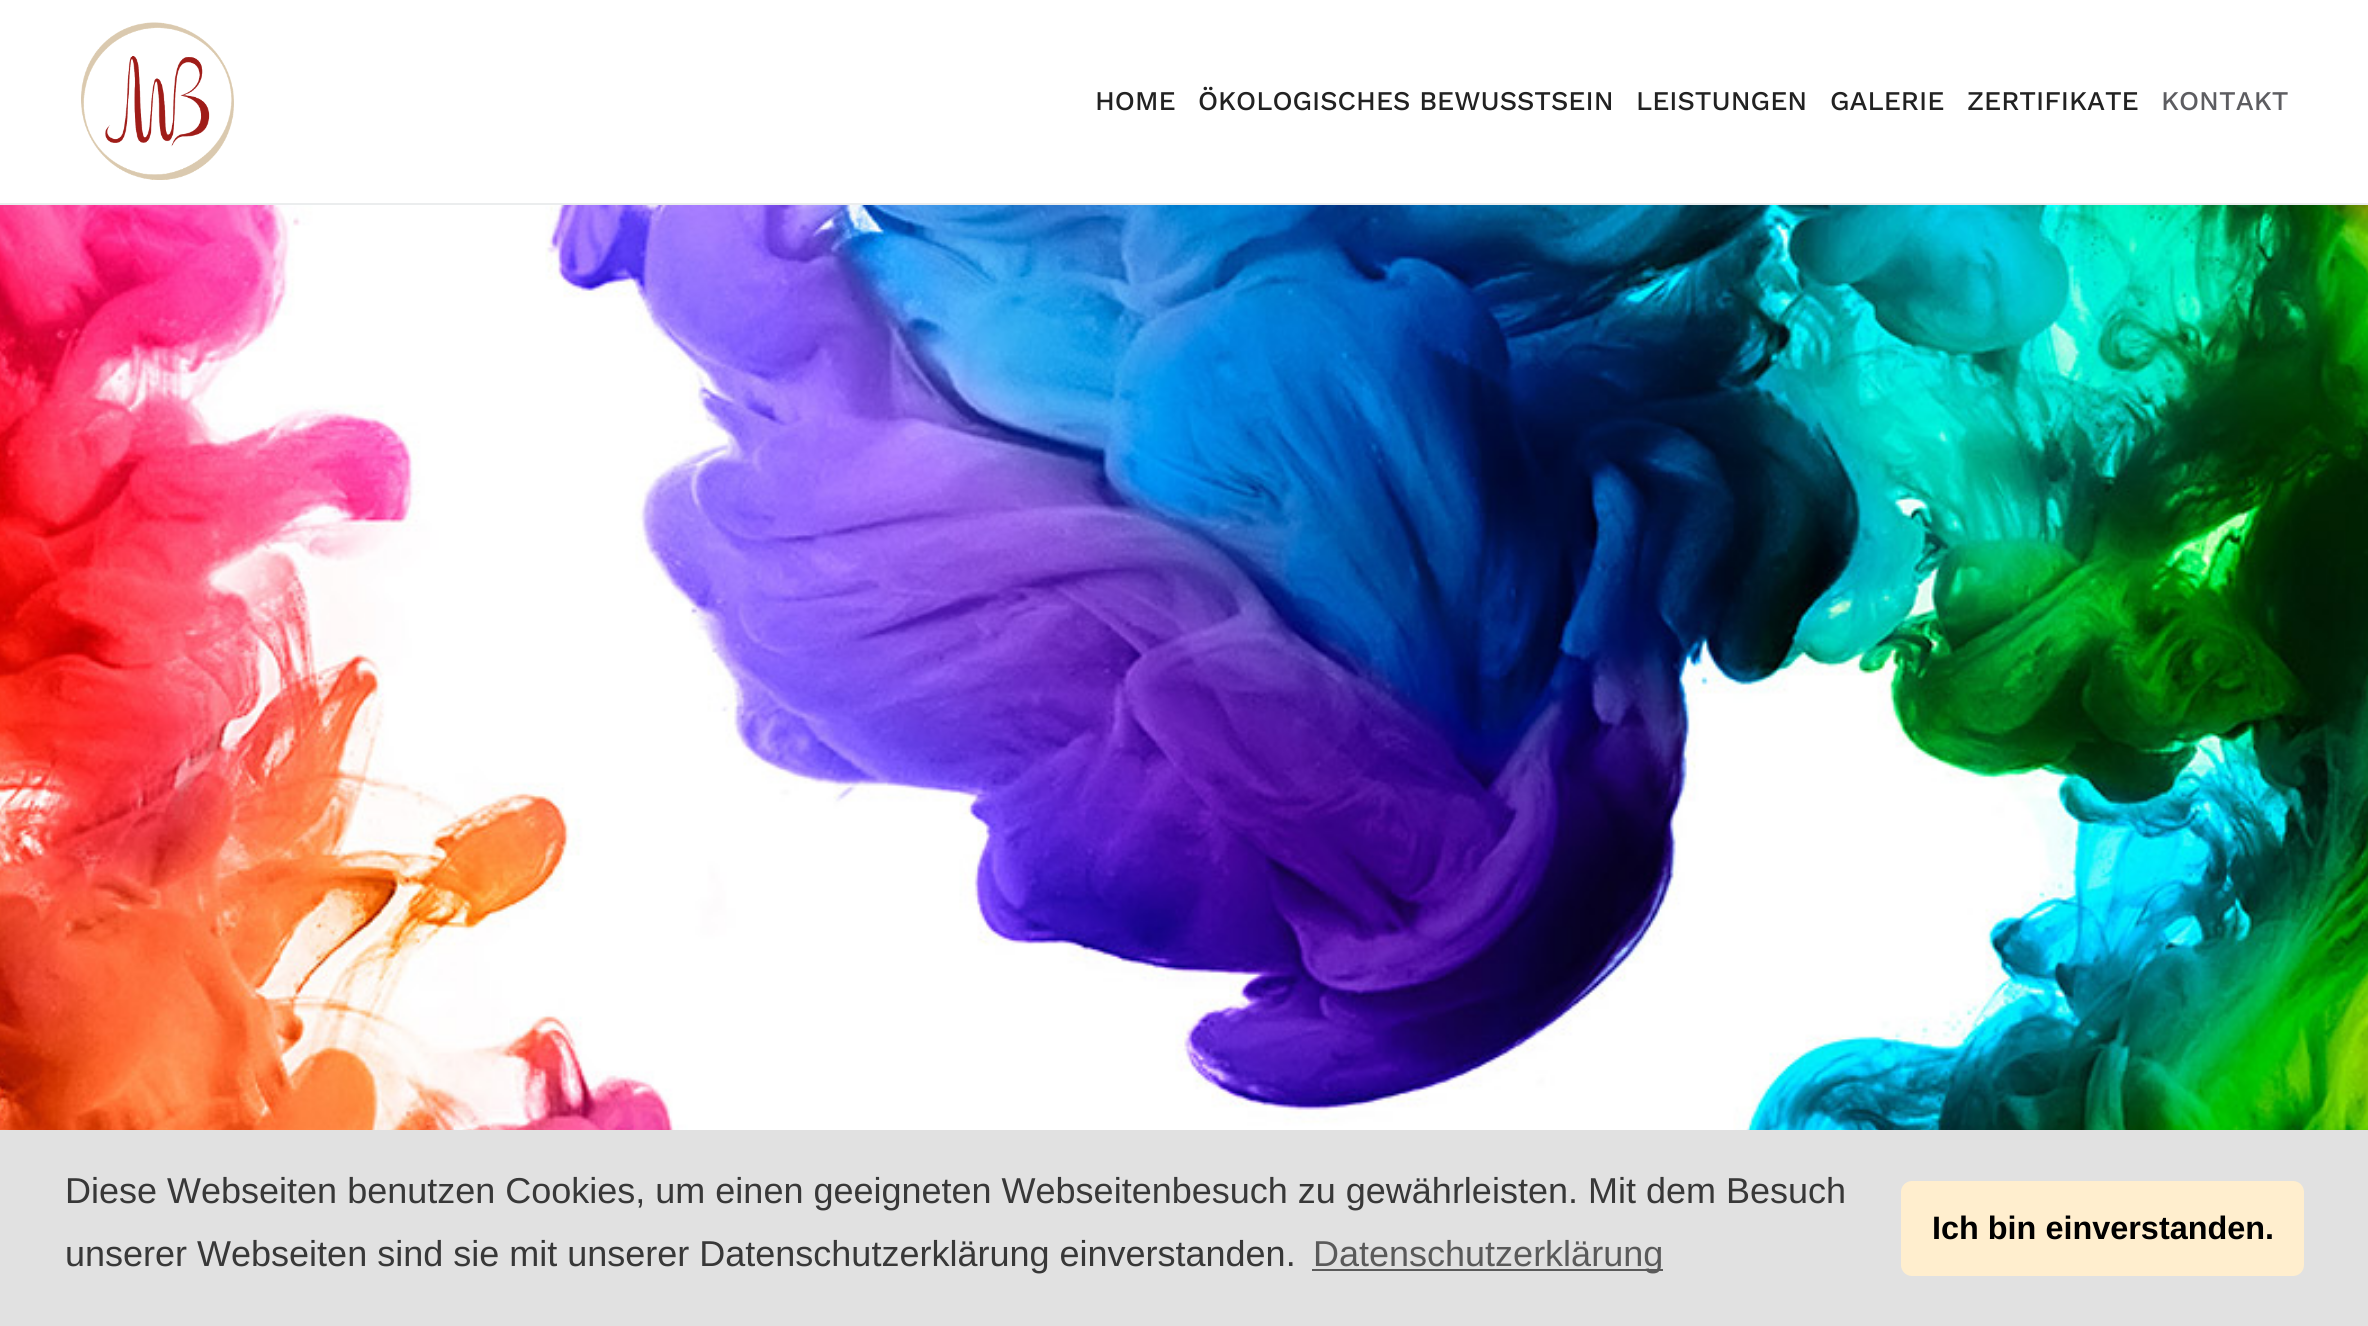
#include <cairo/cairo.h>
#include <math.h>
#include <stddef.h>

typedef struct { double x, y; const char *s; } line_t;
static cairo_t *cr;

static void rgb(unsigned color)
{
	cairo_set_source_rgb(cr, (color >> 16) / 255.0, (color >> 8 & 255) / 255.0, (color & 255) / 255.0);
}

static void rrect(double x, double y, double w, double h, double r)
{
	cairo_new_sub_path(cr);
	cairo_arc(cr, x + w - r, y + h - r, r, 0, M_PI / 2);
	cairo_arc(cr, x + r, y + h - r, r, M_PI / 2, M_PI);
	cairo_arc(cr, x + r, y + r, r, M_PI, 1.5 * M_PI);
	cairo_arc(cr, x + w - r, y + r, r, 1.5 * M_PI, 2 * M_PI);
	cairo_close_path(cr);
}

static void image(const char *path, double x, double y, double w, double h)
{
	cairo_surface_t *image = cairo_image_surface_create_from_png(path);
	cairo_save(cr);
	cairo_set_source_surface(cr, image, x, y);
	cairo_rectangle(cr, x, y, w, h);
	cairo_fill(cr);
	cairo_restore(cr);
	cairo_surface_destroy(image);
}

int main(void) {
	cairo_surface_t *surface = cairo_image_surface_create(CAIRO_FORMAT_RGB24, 2368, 1326);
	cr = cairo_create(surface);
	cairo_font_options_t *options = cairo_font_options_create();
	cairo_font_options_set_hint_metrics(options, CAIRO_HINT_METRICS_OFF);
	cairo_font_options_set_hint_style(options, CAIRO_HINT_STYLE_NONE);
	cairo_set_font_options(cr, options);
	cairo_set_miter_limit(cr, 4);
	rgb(0xffffff);
	cairo_paint(cr);
	rgb(0xebedee);
	cairo_rectangle(cr, 0, 203, 2368, 2);
	cairo_fill(cr);
	image("img/1.png", 81, 22, 153, 158);
	image("img/2.png", 0, 205, 2368, 925);
	rgb(0xe1e1e1);
	cairo_rectangle(cr, 0, 1130, 2368, 196);
	cairo_fill(cr);
	rgb(0x5a5a5a);
	cairo_rectangle(cr, 1312, 1269, 351, 2);
	cairo_fill(cr);
	rgb(0xffeece);
	rrect(1901, 1181, 403, 95, 11);
	cairo_fill(cr);
	cairo_select_font_face(cr, "Work Sans Medium", CAIRO_FONT_SLANT_NORMAL, CAIRO_FONT_WEIGHT_NORMAL);
	cairo_set_font_size(cr, 27);
	rgb(0x222222);
	{
		static const line_t items[] = {
			{1095, 110, "HOME"},
			{1198, 110, "ÖKOLOGISCHES BEWUSSTSEIN"},
			{1636, 110, "LEISTUNGEN"},
			{1830, 110, "GALERIE"},
			{1967, 110, "ZERTIFIKATE"},
		};
		for (size_t i = 0; i < sizeof items / sizeof *items; i++) {
			cairo_move_to(cr, items[i].x, items[i].y);
			cairo_show_text(cr, items[i].s);
		}
	}
	rgb(0x5d5d61);
	cairo_move_to(cr, 2161, 110);
	cairo_show_text(cr, "KONTAKT");
	cairo_select_font_face(cr, "Liberation Sans", CAIRO_FONT_SLANT_NORMAL, CAIRO_FONT_WEIGHT_NORMAL);
	cairo_set_font_size(cr, 36);
	rgb(0x383838);
	cairo_move_to(cr, 65, 1203);
	cairo_show_text(cr, "Diese Webseiten benutzen Cookies, um einen geeigneten Webseitenbesuch zu gewährleisten. Mit dem Besuch");
	cairo_move_to(cr, 65, 1266);
	cairo_show_text(cr, "unserer Webseiten sind sie mit unserer Datenschutzerklärung einverstanden.");
	rgb(0x5a5a5a);
	cairo_move_to(cr, 1313, 1266);
	cairo_show_text(cr, "Datenschutzerklärung");
	cairo_select_font_face(cr, "Liberation Sans", CAIRO_FONT_SLANT_NORMAL, CAIRO_FONT_WEIGHT_BOLD);
	cairo_set_font_size(cr, 32.4);
	rgb(0x000000);
	cairo_move_to(cr, 1932, 1239);
	cairo_show_text(cr, "Ich bin einverstanden.");
	cairo_surface_write_to_png(surface, "page.png");
	cairo_font_options_destroy(options);
	cairo_destroy(cr);
	cairo_surface_destroy(surface);
	return 0;
}
